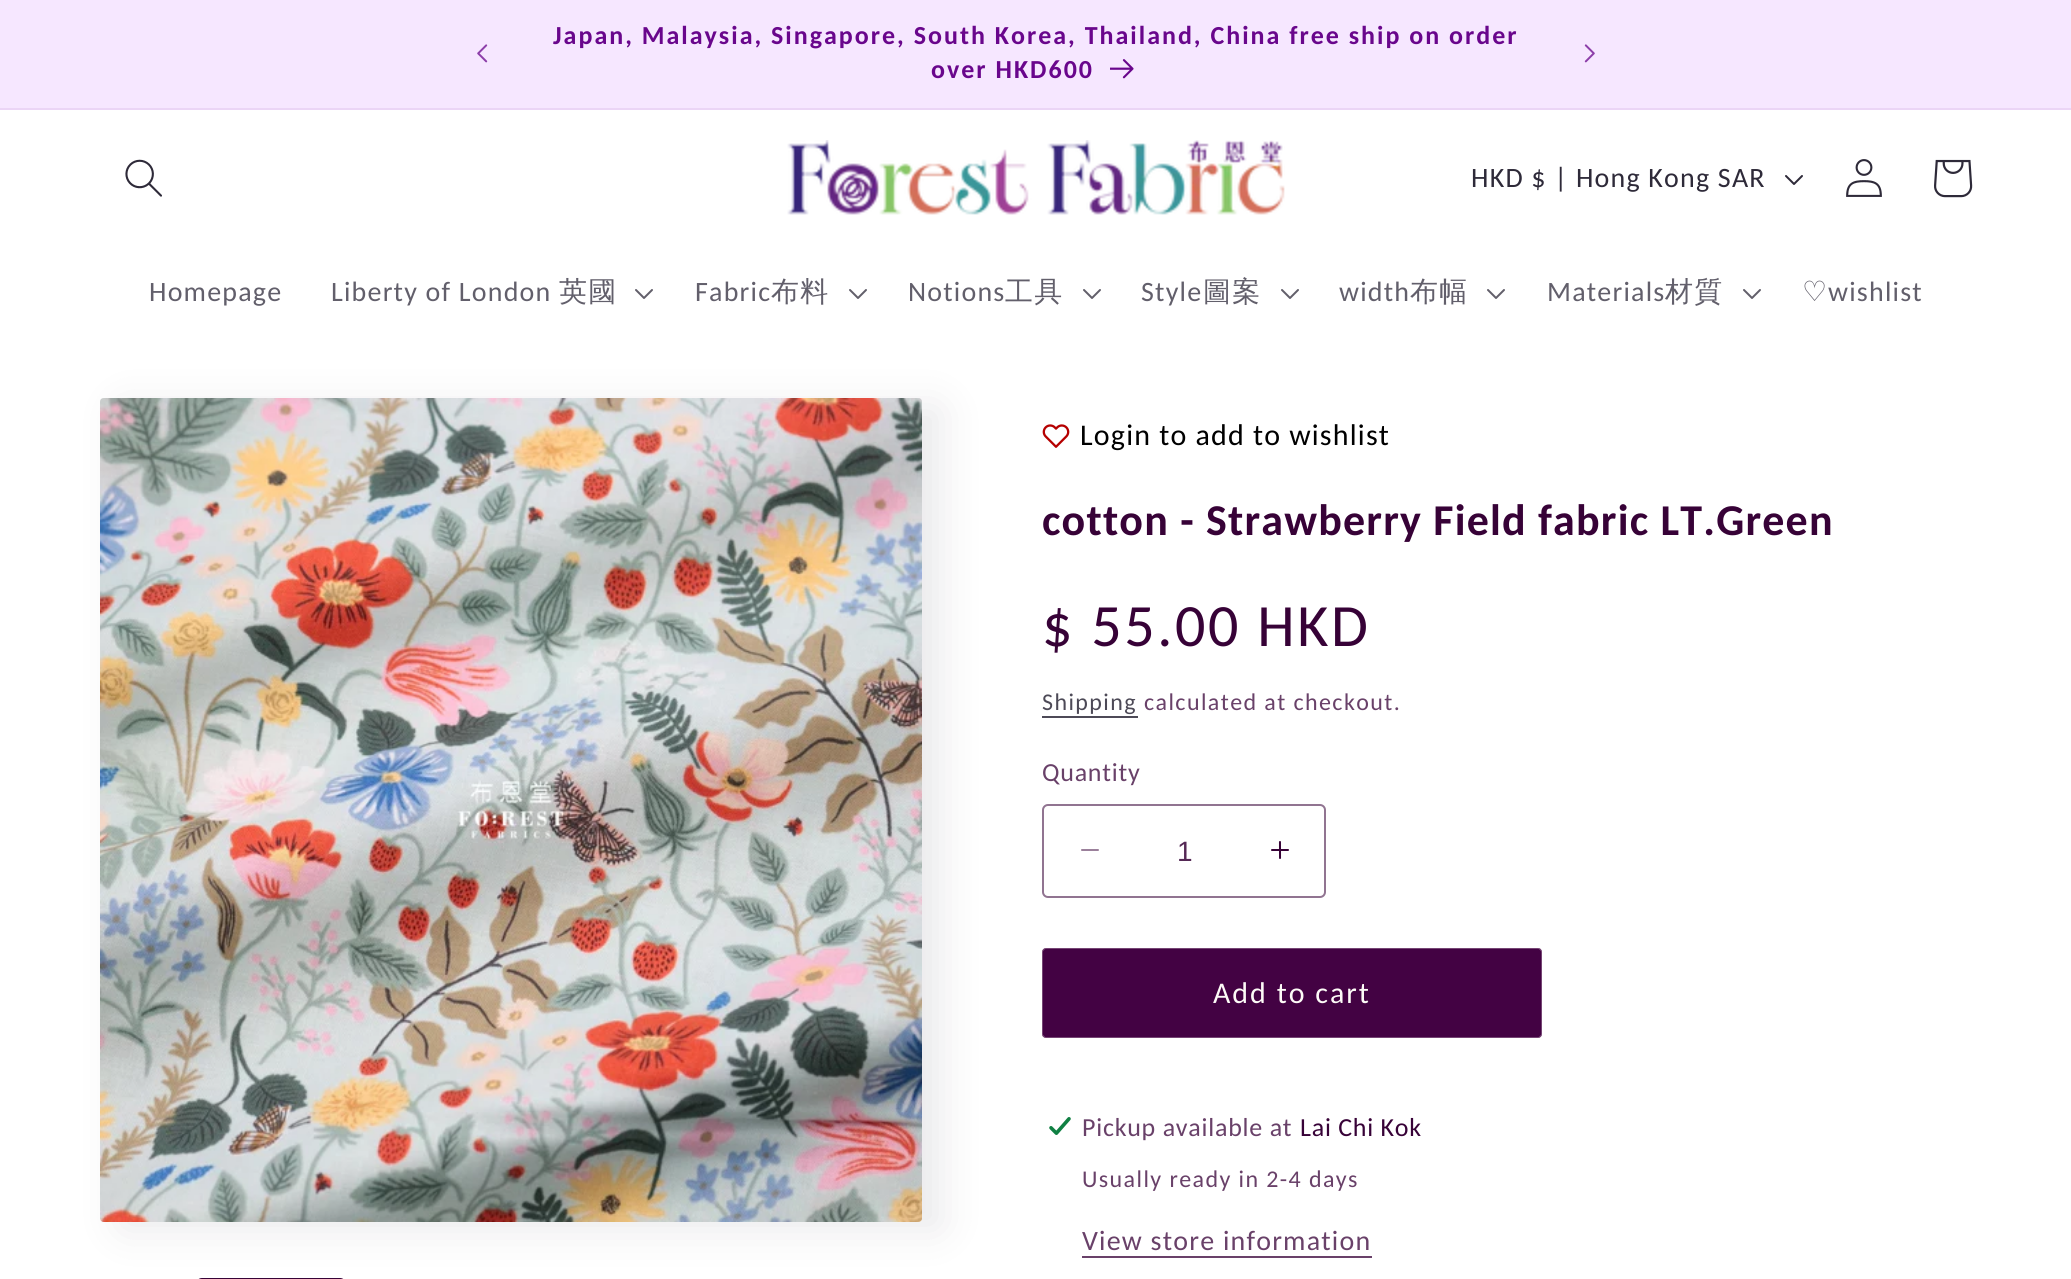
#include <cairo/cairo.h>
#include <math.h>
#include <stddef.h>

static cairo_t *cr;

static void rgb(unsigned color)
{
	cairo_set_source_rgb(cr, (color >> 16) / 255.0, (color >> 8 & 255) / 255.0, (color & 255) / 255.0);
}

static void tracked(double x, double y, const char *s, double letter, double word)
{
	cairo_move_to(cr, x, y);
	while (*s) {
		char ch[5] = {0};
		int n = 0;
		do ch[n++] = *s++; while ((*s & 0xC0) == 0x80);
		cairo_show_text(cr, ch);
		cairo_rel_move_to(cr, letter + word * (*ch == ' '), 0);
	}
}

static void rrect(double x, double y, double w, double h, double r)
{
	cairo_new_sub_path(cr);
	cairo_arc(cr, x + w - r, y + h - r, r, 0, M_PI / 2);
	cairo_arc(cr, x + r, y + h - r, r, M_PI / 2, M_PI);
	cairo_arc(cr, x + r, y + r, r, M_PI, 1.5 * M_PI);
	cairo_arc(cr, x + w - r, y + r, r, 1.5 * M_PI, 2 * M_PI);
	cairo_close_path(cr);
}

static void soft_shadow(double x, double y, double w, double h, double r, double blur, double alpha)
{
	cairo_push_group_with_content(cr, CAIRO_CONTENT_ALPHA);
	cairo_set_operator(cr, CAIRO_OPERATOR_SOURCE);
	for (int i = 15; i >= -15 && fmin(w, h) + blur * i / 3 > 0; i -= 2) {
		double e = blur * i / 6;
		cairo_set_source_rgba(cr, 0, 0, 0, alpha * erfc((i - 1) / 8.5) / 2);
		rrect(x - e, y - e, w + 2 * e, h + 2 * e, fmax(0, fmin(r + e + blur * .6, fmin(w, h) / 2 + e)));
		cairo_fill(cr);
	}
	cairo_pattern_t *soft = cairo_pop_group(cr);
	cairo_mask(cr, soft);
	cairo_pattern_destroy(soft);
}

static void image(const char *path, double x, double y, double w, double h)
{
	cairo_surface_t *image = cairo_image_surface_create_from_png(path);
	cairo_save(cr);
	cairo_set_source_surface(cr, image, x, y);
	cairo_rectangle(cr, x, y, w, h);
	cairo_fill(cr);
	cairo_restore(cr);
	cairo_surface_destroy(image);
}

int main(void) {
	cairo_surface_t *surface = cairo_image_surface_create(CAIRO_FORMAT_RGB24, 2071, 1279);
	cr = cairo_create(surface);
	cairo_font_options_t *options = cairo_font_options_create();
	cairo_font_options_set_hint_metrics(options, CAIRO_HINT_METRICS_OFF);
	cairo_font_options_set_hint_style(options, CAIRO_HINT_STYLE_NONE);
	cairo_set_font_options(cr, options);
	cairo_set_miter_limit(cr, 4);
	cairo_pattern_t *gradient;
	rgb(0xffffff);
	cairo_paint(cr);
	gradient = cairo_pattern_create_linear(1036, 0, 1036, 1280);
	cairo_pattern_add_color_stop_rgba(gradient, 0.66, 0.965, 0.906, 1, 1);
	cairo_pattern_add_color_stop_rgba(gradient, 1, 0.886, 0.988, 0.98, 1);
	cairo_set_source(cr, gradient);
	cairo_pattern_destroy(gradient);
	cairo_rectangle(cr, 0, 0, 2071, 108);
	cairo_fill(cr);
	rgb(0xebd5f6);
	cairo_rectangle(cr, 0, 108, 2071, 2);
	cairo_fill(cr);
	image("img/1.png", 477, 44, 11, 19);
	image("img/2.png", 1110, 59, 24, 20);
	image("img/3.png", 1584, 44, 11, 19);
	image("img/4.png", 125, 159, 37, 38);
	image("img/5.png", 787, 140, 498, 75);
	image("img/6.png", 1785, 175, 18, 10);
	image("img/7.png", 1846, 159, 36, 38);
	image("img/8.png", 1934, 159, 39, 39);
	image("img/9.png", 635, 289, 18, 10);
	image("img/9.png", 849, 289, 18, 10);
	image("img/9.png", 1083, 289, 18, 10);
	image("img/9.png", 1281, 289, 18, 10);
	image("img/9.png", 1487, 289, 18, 10);
	image("img/9.png", 1743, 289, 18, 10);
	rgb(0x2e2a39);
	soft_shadow(120, 406, 822, 824, 4, 20, 0.1);
	image("img/10.png", 100, 398, 822, 824);
	rrect(197, 1279, 148, 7, 5);
	rgb(0x370237);
	cairo_stroke(cr);
	image("img/11.png", 1042, 424, 28, 24);
	rgb(0x4d4a57);
	cairo_rectangle(cr, 1042, 716, 96, 2);
	cairo_fill(cr);
	image("img/12.png", 1081, 849, 18, 2);
	image("img/13.png", 1271, 841, 18, 18);
	rrect(1043, 805, 282, 92, 5);
	rgb(0x917491);
	cairo_stroke(cr);
	rgb(0x430243);
	rrect(1042, 948, 500, 90, 4);
	cairo_fill(cr);
	rrect(1042.3, 948.3, 499.4, 89.4, 4.7);
	cairo_set_source_rgba(cr, 0.992, 0.984, 0.969, 0.45);
	cairo_set_line_width(cr, 0.6);
	cairo_stroke(cr);
	image("img/14.png", 1049, 1117, 22, 18);
	rgb(0x694169);
	cairo_rectangle(cr, 1082, 1256, 290, 2);
	cairo_fill(cr);
	cairo_select_font_face(cr, "Carlito", CAIRO_FONT_SLANT_NORMAL, CAIRO_FONT_WEIGHT_BOLD);
	cairo_set_font_size(cr, 26);
	rgb(0x69068c);
	tracked(553, 44, "Japan, Malaysia, Singapore, South Korea, Thailand, China free ship on order", 2, 0);
	tracked(931, 78, "over HKD600", 2, 0);
	cairo_select_font_face(cr, "Carlito", CAIRO_FONT_SLANT_NORMAL, CAIRO_FONT_WEIGHT_NORMAL);
	cairo_set_font_size(cr, 28);
	rgb(0x2e2a39);
	tracked(1471, 187, "HKD $ | Hong Kong SAR", 1.2, 0);
	rgb(0x625f6b);
	tracked(149, 301, "Homepage", 1.2, 0);
	tracked(331, 301, "Liberty of London", 1.2, 0);
	cairo_select_font_face(cr, "WenQuanYi Zen Hei Medium", CAIRO_FONT_SLANT_NORMAL, CAIRO_FONT_WEIGHT_NORMAL);
	tracked(559, 301, "英國", 1.2, 0);
	cairo_select_font_face(cr, "Carlito", CAIRO_FONT_SLANT_NORMAL, CAIRO_FONT_WEIGHT_NORMAL);
	tracked(695, 301, "Fabric", 1.2, 0);
	cairo_select_font_face(cr, "WenQuanYi Zen Hei Medium", CAIRO_FONT_SLANT_NORMAL, CAIRO_FONT_WEIGHT_NORMAL);
	tracked(771, 301, "布料", 1.2, 0);
	cairo_select_font_face(cr, "Carlito", CAIRO_FONT_SLANT_NORMAL, CAIRO_FONT_WEIGHT_NORMAL);
	tracked(908, 301, "Notions", 1.2, 0);
	cairo_select_font_face(cr, "WenQuanYi Zen Hei Medium", CAIRO_FONT_SLANT_NORMAL, CAIRO_FONT_WEIGHT_NORMAL);
	tracked(1005, 301, "工具", 1.2, 0);
	cairo_select_font_face(cr, "Carlito", CAIRO_FONT_SLANT_NORMAL, CAIRO_FONT_WEIGHT_NORMAL);
	tracked(1141, 301, "Style", 1.2, 0);
	cairo_select_font_face(cr, "WenQuanYi Zen Hei Medium", CAIRO_FONT_SLANT_NORMAL, CAIRO_FONT_WEIGHT_NORMAL);
	tracked(1203, 301, "圖案", 1.2, 0);
	cairo_select_font_face(cr, "Carlito", CAIRO_FONT_SLANT_NORMAL, CAIRO_FONT_WEIGHT_NORMAL);
	tracked(1339, 301, "width", 1.2, 0);
	cairo_select_font_face(cr, "WenQuanYi Zen Hei Medium", CAIRO_FONT_SLANT_NORMAL, CAIRO_FONT_WEIGHT_NORMAL);
	tracked(1410, 301, "布幅", 1.2, 0);
	cairo_select_font_face(cr, "Carlito", CAIRO_FONT_SLANT_NORMAL, CAIRO_FONT_WEIGHT_NORMAL);
	tracked(1547, 301, "Materials", 1.2, 0);
	cairo_select_font_face(cr, "WenQuanYi Zen Hei Medium", CAIRO_FONT_SLANT_NORMAL, CAIRO_FONT_WEIGHT_NORMAL);
	tracked(1665, 301, "材質", 1.2, 0);
	cairo_select_font_face(cr, "DejaVu Sans", CAIRO_FONT_SLANT_NORMAL, CAIRO_FONT_WEIGHT_NORMAL);
	tracked(1802, 301, "♡", 1.2, 0);
	cairo_select_font_face(cr, "Carlito", CAIRO_FONT_SLANT_NORMAL, CAIRO_FONT_WEIGHT_NORMAL);
	tracked(1828, 301, "wishlist", 1.2, 0);
	cairo_set_font_size(cr, 30);
	rgb(0x000000);
	tracked(1080, 445, "Login to add to wishlist", 1.2, 0);
	cairo_select_font_face(cr, "Carlito", CAIRO_FONT_SLANT_NORMAL, CAIRO_FONT_WEIGHT_BOLD);
	cairo_set_font_size(cr, 44);
	rgb(0x370237);
	tracked(1042, 535, "cotton - Strawberry Field fabric LT.Green", 1.2, 0);
	cairo_select_font_face(cr, "Carlito", CAIRO_FONT_SLANT_NORMAL, CAIRO_FONT_WEIGHT_NORMAL);
	cairo_set_font_size(cr, 60);
	tracked(1042, 646, "$ 55.00 HKD", 2.6, 0);
	cairo_set_font_size(cr, 24);
	rgb(0x4d4a57);
	tracked(1042, 710, "Shipping", 1.4, 0);
	rgb(0x694169);
	tracked(1144, 710, "calculated at checkout.", 1.4, 0);
	cairo_set_font_size(cr, 26);
	tracked(1042, 781, "Quantity", 0.75, 0);
	cairo_select_font_face(cr, "Liberation Sans", CAIRO_FONT_SLANT_NORMAL, CAIRO_FONT_WEIGHT_NORMAL);
	cairo_set_font_size(cr, 28);
	rgb(0x552855);
	cairo_move_to(cr, 1177, 861);
	cairo_show_text(cr, "1");
	cairo_select_font_face(cr, "Carlito", CAIRO_FONT_SLANT_NORMAL, CAIRO_FONT_WEIGHT_NORMAL);
	cairo_set_font_size(cr, 30);
	rgb(0xfdfbf7);
	tracked(1213, 1003, "Add to cart", 2, 0);
	cairo_set_font_size(cr, 26);
	rgb(0x694169);
	tracked(1082, 1136, "Pickup available at", 0.75, 0);
	rgb(0x370237);
	tracked(1300, 1136, "Lai Chi Kok", 0.75, 0);
	cairo_set_font_size(cr, 24);
	rgb(0x694169);
	tracked(1082, 1187, "Usually ready in 2-4 days", 1.4, 0);
	cairo_set_font_size(cr, 28);
	tracked(1082, 1250, "View store information", 1.2, 0);
	cairo_surface_write_to_png(surface, "page.png");
	cairo_font_options_destroy(options);
	cairo_destroy(cr);
	cairo_surface_destroy(surface);
	return 0;
}
